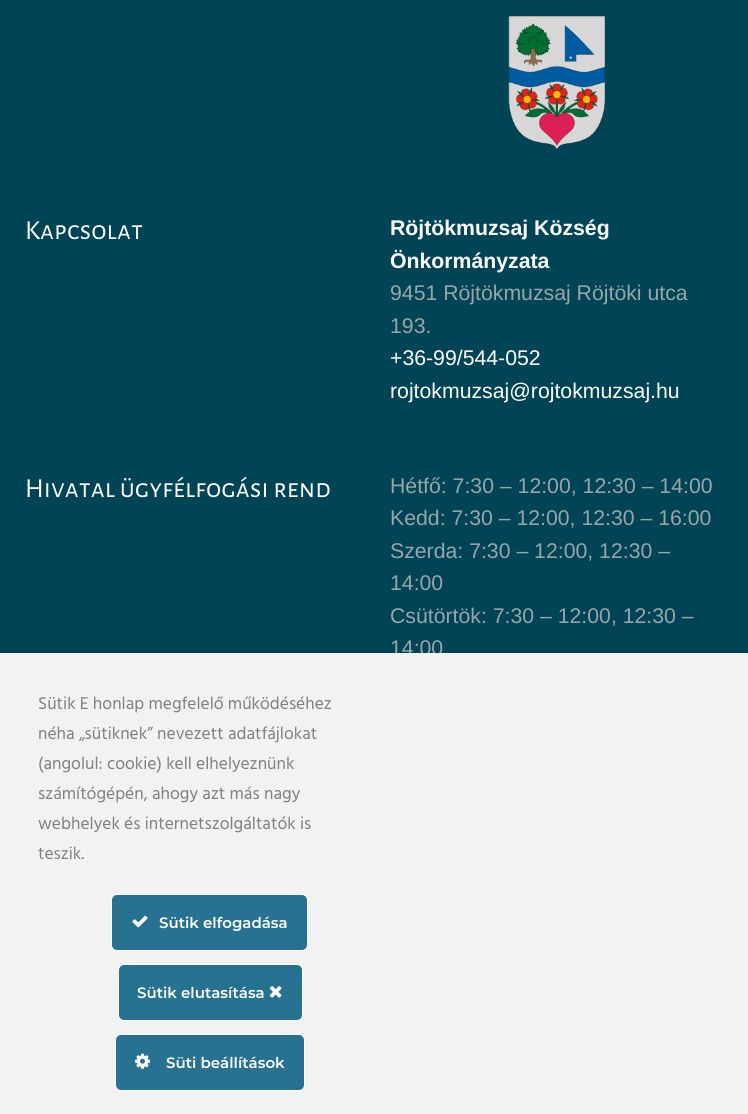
#include <cairo/cairo.h>
#include <math.h>
#include <stddef.h>

typedef struct { double x, y; const char *s; } line_t;
static cairo_t *cr;

static void rgb(unsigned color)
{
	cairo_set_source_rgb(cr, (color >> 16) / 255.0, (color >> 8 & 255) / 255.0, (color & 255) / 255.0);
}

static void rrect(double x, double y, double w, double h, double r)
{
	cairo_new_sub_path(cr);
	cairo_arc(cr, x + w - r, y + h - r, r, 0, M_PI / 2);
	cairo_arc(cr, x + r, y + h - r, r, M_PI / 2, M_PI);
	cairo_arc(cr, x + r, y + r, r, M_PI, 1.5 * M_PI);
	cairo_arc(cr, x + w - r, y + r, r, 1.5 * M_PI, 2 * M_PI);
	cairo_close_path(cr);
}

static void image(const char *path, double x, double y, double w, double h)
{
	cairo_surface_t *image = cairo_image_surface_create_from_png(path);
	cairo_save(cr);
	cairo_set_source_surface(cr, image, x, y);
	cairo_rectangle(cr, x, y, w, h);
	cairo_fill(cr);
	cairo_restore(cr);
	cairo_surface_destroy(image);
}

int main(void) {
	cairo_surface_t *surface = cairo_image_surface_create(CAIRO_FORMAT_RGB24, 748, 1114);
	cr = cairo_create(surface);
	cairo_font_options_t *options = cairo_font_options_create();
	cairo_font_options_set_hint_metrics(options, CAIRO_HINT_METRICS_OFF);
	cairo_font_options_set_hint_style(options, CAIRO_HINT_STYLE_NONE);
	cairo_set_font_options(cr, options);
	cairo_set_miter_limit(cr, 4);
	rgb(0x004455);
	cairo_paint(cr);
	image("img/1.png", 508, 16, 97, 133);
	cairo_select_font_face(cr, "Alegreya Sans SC", CAIRO_FONT_SLANT_NORMAL, CAIRO_FONT_WEIGHT_NORMAL);
	cairo_set_font_size(cr, 27.5);
	rgb(0xffffff);
	cairo_move_to(cr, 25, 239);
	cairo_show_text(cr, "Kapcsolat");
	cairo_select_font_face(cr, "Liberation Sans", CAIRO_FONT_SLANT_NORMAL, CAIRO_FONT_WEIGHT_BOLD);
	cairo_set_font_size(cr, 21.25);
	cairo_move_to(cr, 390, 235);
	cairo_show_text(cr, "Röjtökmuzsaj Község");
	cairo_move_to(cr, 390, 268);
	cairo_show_text(cr, "Önkormányzata");
	cairo_select_font_face(cr, "Liberation Sans", CAIRO_FONT_SLANT_NORMAL, CAIRO_FONT_WEIGHT_NORMAL);
	rgb(0x98a5aa);
	cairo_move_to(cr, 390, 300);
	cairo_show_text(cr, "9451 Röjtökmuzsaj Röjtöki utca");
	cairo_move_to(cr, 390, 333);
	cairo_show_text(cr, "193.");
	rgb(0xffffff);
	cairo_move_to(cr, 390, 365);
	cairo_show_text(cr, "+36-99/544-052");
	cairo_move_to(cr, 390, 398);
	cairo_show_text(cr, "rojtokmuzsaj@rojtokmuzsaj.hu");
	cairo_select_font_face(cr, "Alegreya Sans SC", CAIRO_FONT_SLANT_NORMAL, CAIRO_FONT_WEIGHT_NORMAL);
	cairo_set_font_size(cr, 27.5);
	cairo_move_to(cr, 25, 497);
	cairo_show_text(cr, "Hivatal ügyfélfogási rend");
	cairo_select_font_face(cr, "Liberation Sans", CAIRO_FONT_SLANT_NORMAL, CAIRO_FONT_WEIGHT_NORMAL);
	cairo_set_font_size(cr, 21.25);
	rgb(0x98a5aa);
	{
		static const line_t items[] = {
			{390, 493, "Hétfő: 7:30 – 12:00, 12:30 – 14:00"},
			{390, 525, "Kedd: 7:30 – 12:00, 12:30 – 16:00"},
			{390, 558, "Szerda: 7:30 – 12:00, 12:30 –"},
			{390, 590, "14:00"},
			{390, 623, "Csütörtök: 7:30 – 12:00, 12:30 –"},
			{390, 655, "14:00"},
		};
		for (size_t i = 0; i < sizeof items / sizeof *items; i++) {
			cairo_move_to(cr, items[i].x, items[i].y);
			cairo_show_text(cr, items[i].s);
		}
	}
	rgb(0xf2f2f2);
	cairo_rectangle(cr, 0, 653, 748, 461);
	cairo_fill(cr);
	cairo_select_font_face(cr, "Hind", CAIRO_FONT_SLANT_NORMAL, CAIRO_FONT_WEIGHT_NORMAL);
	cairo_set_font_size(cr, 17.5);
	rgb(0x808080);
	{
		static const line_t items[] = {
			{38, 709, "Sütik E honlap megfelelő működéséhez"},
			{38, 739, "néha „sütiknek” nevezett adatfájlokat"},
			{38, 769, "(angolul: cookie) kell elhelyeznünk"},
			{38, 799, "számítógépén, ahogy azt más nagy"},
			{38, 829, "webhelyek és internetszolgáltatók is"},
			{38, 859, "teszik."},
		};
		for (size_t i = 0; i < sizeof items / sizeof *items; i++) {
			cairo_move_to(cr, items[i].x, items[i].y);
			cairo_show_text(cr, items[i].s);
		}
	}
	rgb(0x287291);
	rrect(111.5, 894.5, 196, 56, 5.5);
	cairo_fill_preserve(cr);
	rgb(0xffffff);
	cairo_set_line_width(cr, 1);
	cairo_stroke(cr);
	image("img/2.png", 132, 915, 16, 13);
	cairo_select_font_face(cr, "Montserrat SemiBold", CAIRO_FONT_SLANT_NORMAL, CAIRO_FONT_WEIGHT_NORMAL);
	cairo_set_font_size(cr, 15);
	cairo_move_to(cr, 159, 928);
	cairo_show_text(cr, "Sütik elfogadása");
	rgb(0x287291);
	rrect(118.5, 964.5, 184, 56, 5.5);
	cairo_fill_preserve(cr);
	rgb(0xffffff);
	cairo_stroke(cr);
	cairo_move_to(cr, 137, 998);
	cairo_show_text(cr, "Sütik elutasítása");
	image("img/3.png", 269, 986, 13, 12);
	rgb(0x287291);
	rrect(115.5, 1034.5, 189, 56, 5.5);
	cairo_fill_preserve(cr);
	rgb(0xffffff);
	cairo_stroke(cr);
	image("img/4.png", 135, 1053, 15, 16);
	cairo_move_to(cr, 166, 1068);
	cairo_show_text(cr, "Süti beállítások");
	cairo_surface_write_to_png(surface, "page.png");
	cairo_font_options_destroy(options);
	cairo_destroy(cr);
	cairo_surface_destroy(surface);
	return 0;
}
